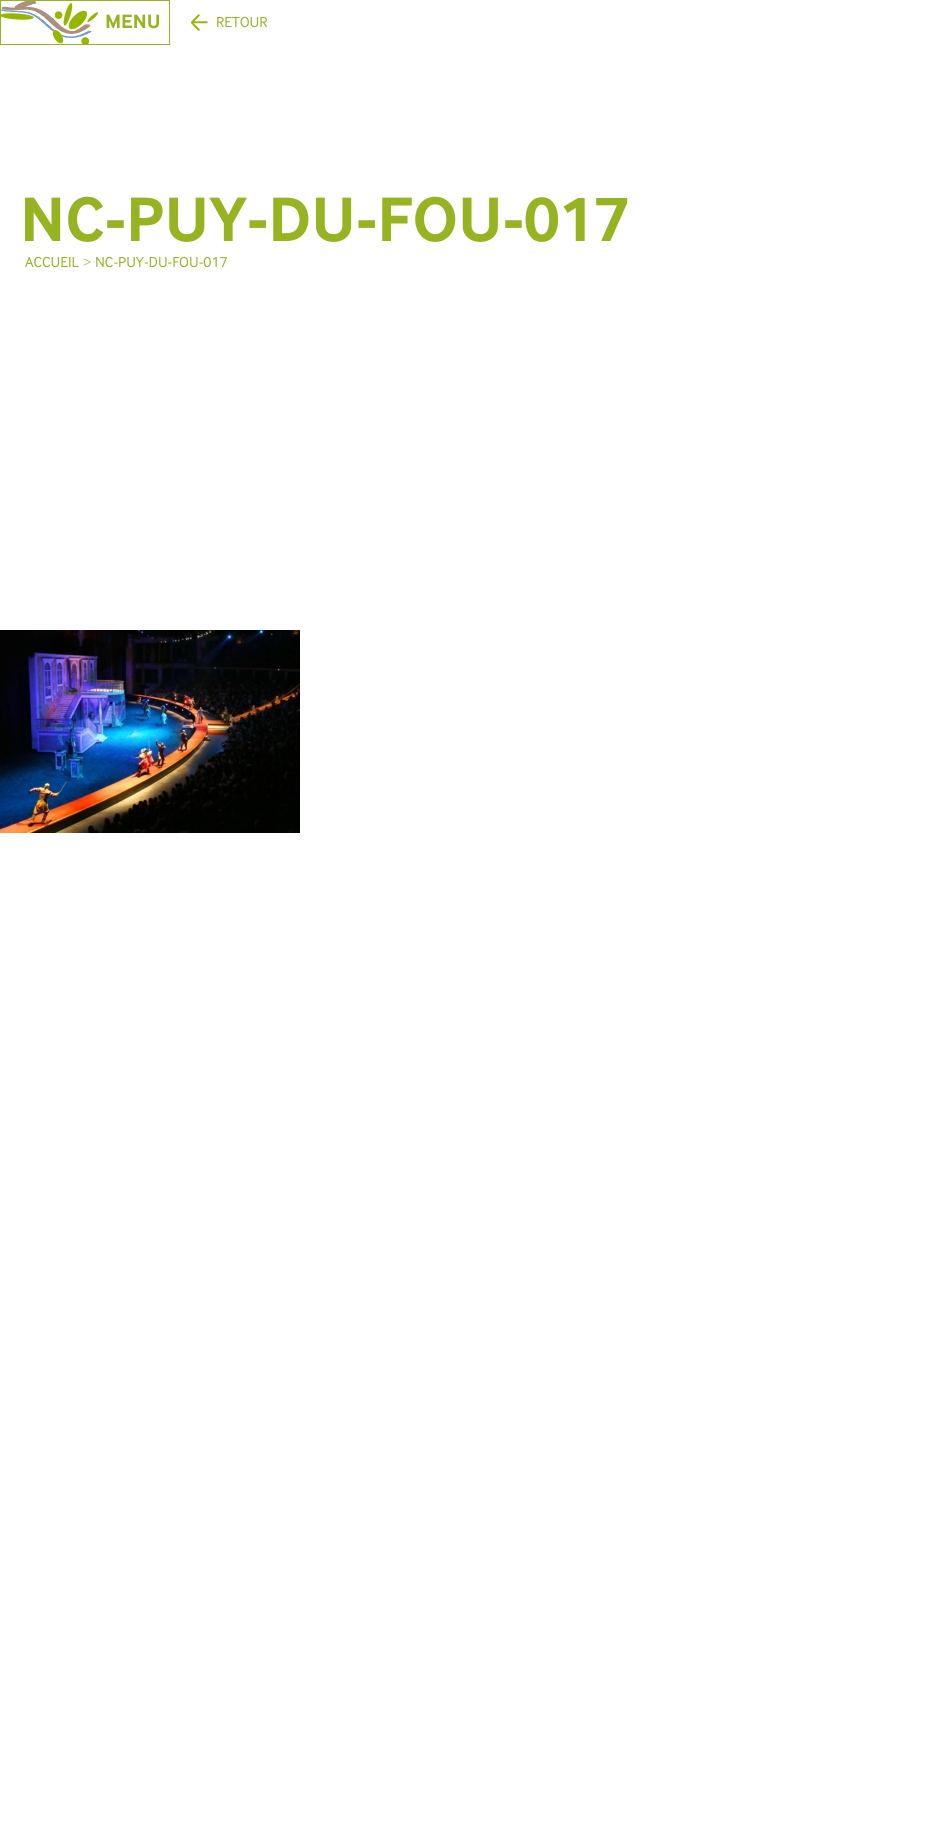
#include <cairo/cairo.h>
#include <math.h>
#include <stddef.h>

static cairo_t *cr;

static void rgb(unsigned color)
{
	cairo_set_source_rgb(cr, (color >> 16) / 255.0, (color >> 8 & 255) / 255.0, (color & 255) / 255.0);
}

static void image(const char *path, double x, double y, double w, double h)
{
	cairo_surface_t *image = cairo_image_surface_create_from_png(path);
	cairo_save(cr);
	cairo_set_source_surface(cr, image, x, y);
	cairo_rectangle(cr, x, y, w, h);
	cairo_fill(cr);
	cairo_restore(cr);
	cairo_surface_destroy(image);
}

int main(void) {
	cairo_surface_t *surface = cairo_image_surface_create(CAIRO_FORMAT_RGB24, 936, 1836);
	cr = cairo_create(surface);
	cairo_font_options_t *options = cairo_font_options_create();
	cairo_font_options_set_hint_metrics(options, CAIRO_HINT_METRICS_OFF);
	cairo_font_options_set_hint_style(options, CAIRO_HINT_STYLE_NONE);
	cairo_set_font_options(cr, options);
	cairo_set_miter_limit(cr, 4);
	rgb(0xffffff);
	cairo_paint(cr);
	image("img/1.png", 1, 1, 97, 43);
	cairo_rectangle(cr, 0.5, 0.5, 169, 44);
	rgb(0x96b422);
	cairo_set_line_width(cr, 1);
	cairo_stroke(cr);
	image("img/2.png", 191, 14, 17, 17);
	image("img/3.png", 0, 630, 300, 203);
	cairo_select_font_face(cr, "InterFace", CAIRO_FONT_SLANT_NORMAL, CAIRO_FONT_WEIGHT_BOLD);
	cairo_set_font_size(cr, 20);
	cairo_move_to(cr, 105, 28);
	cairo_show_text(cr, "MENU");
	cairo_select_font_face(cr, "InterFace", CAIRO_FONT_SLANT_NORMAL, CAIRO_FONT_WEIGHT_NORMAL);
	cairo_set_font_size(cr, 15);
	cairo_move_to(cr, 216, 27);
	cairo_show_text(cr, "RETOUR");
	cairo_select_font_face(cr, "InterFace", CAIRO_FONT_SLANT_NORMAL, CAIRO_FONT_WEIGHT_BOLD);
	cairo_set_font_size(cr, 65);
	cairo_move_to(cr, 20, 241);
	cairo_show_text(cr, "NC-PUY-DU-FOU-017");
	cairo_select_font_face(cr, "InterFace", CAIRO_FONT_SLANT_NORMAL, CAIRO_FONT_WEIGHT_NORMAL);
	cairo_set_font_size(cr, 15);
	cairo_move_to(cr, 25, 267);
	cairo_show_text(cr, "ACCUEIL");
	cairo_select_font_face(cr, "Liberation Serif", CAIRO_FONT_SLANT_NORMAL, CAIRO_FONT_WEIGHT_NORMAL);
	cairo_move_to(cr, 83, 267);
	cairo_show_text(cr, ">");
	cairo_select_font_face(cr, "InterFace", CAIRO_FONT_SLANT_NORMAL, CAIRO_FONT_WEIGHT_NORMAL);
	cairo_move_to(cr, 95, 267);
	cairo_show_text(cr, "NC-PUY-DU-FOU-017");
	cairo_surface_write_to_png(surface, "page.png");
	cairo_font_options_destroy(options);
	cairo_destroy(cr);
	cairo_surface_destroy(surface);
	return 0;
}
